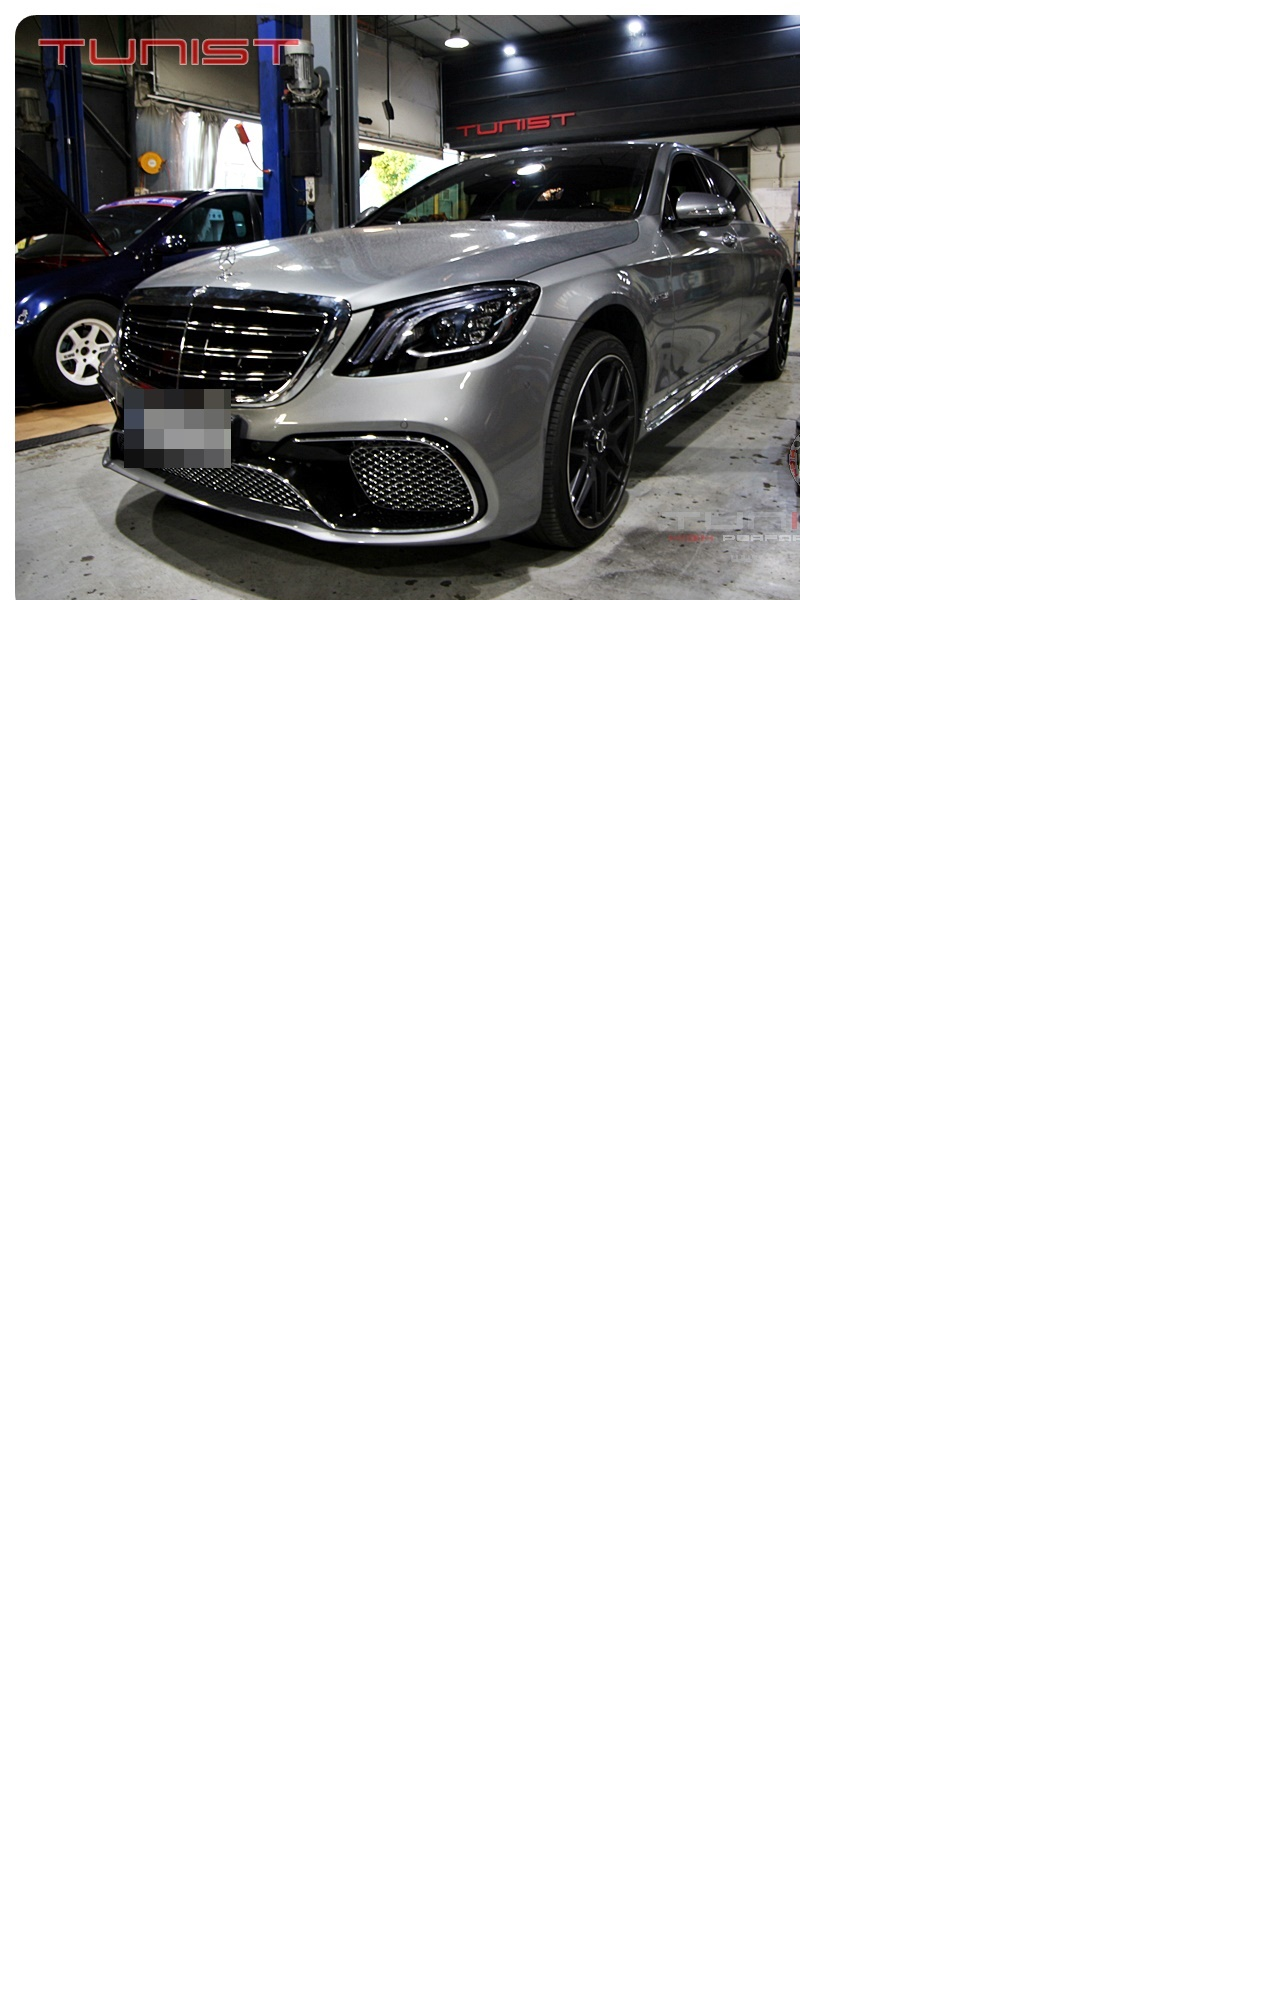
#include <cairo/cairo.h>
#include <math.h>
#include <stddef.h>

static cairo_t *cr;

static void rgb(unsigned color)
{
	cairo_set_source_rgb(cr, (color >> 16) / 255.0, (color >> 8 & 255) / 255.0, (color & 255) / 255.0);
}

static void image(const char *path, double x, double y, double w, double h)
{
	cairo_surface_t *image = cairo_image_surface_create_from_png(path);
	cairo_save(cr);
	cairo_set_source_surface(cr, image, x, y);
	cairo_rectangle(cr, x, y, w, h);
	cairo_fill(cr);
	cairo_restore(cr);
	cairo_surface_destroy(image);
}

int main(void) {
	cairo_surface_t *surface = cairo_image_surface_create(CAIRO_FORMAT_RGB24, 1263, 1993);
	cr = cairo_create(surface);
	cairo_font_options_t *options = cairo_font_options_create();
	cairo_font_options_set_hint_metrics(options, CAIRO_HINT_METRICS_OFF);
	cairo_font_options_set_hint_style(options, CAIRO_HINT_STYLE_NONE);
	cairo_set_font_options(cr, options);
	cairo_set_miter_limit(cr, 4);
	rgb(0xffffff);
	cairo_paint(cr);
	image("img/1.png", 0, 2, 800, 598);
	cairo_surface_write_to_png(surface, "page.png");
	cairo_font_options_destroy(options);
	cairo_destroy(cr);
	cairo_surface_destroy(surface);
	return 0;
}
